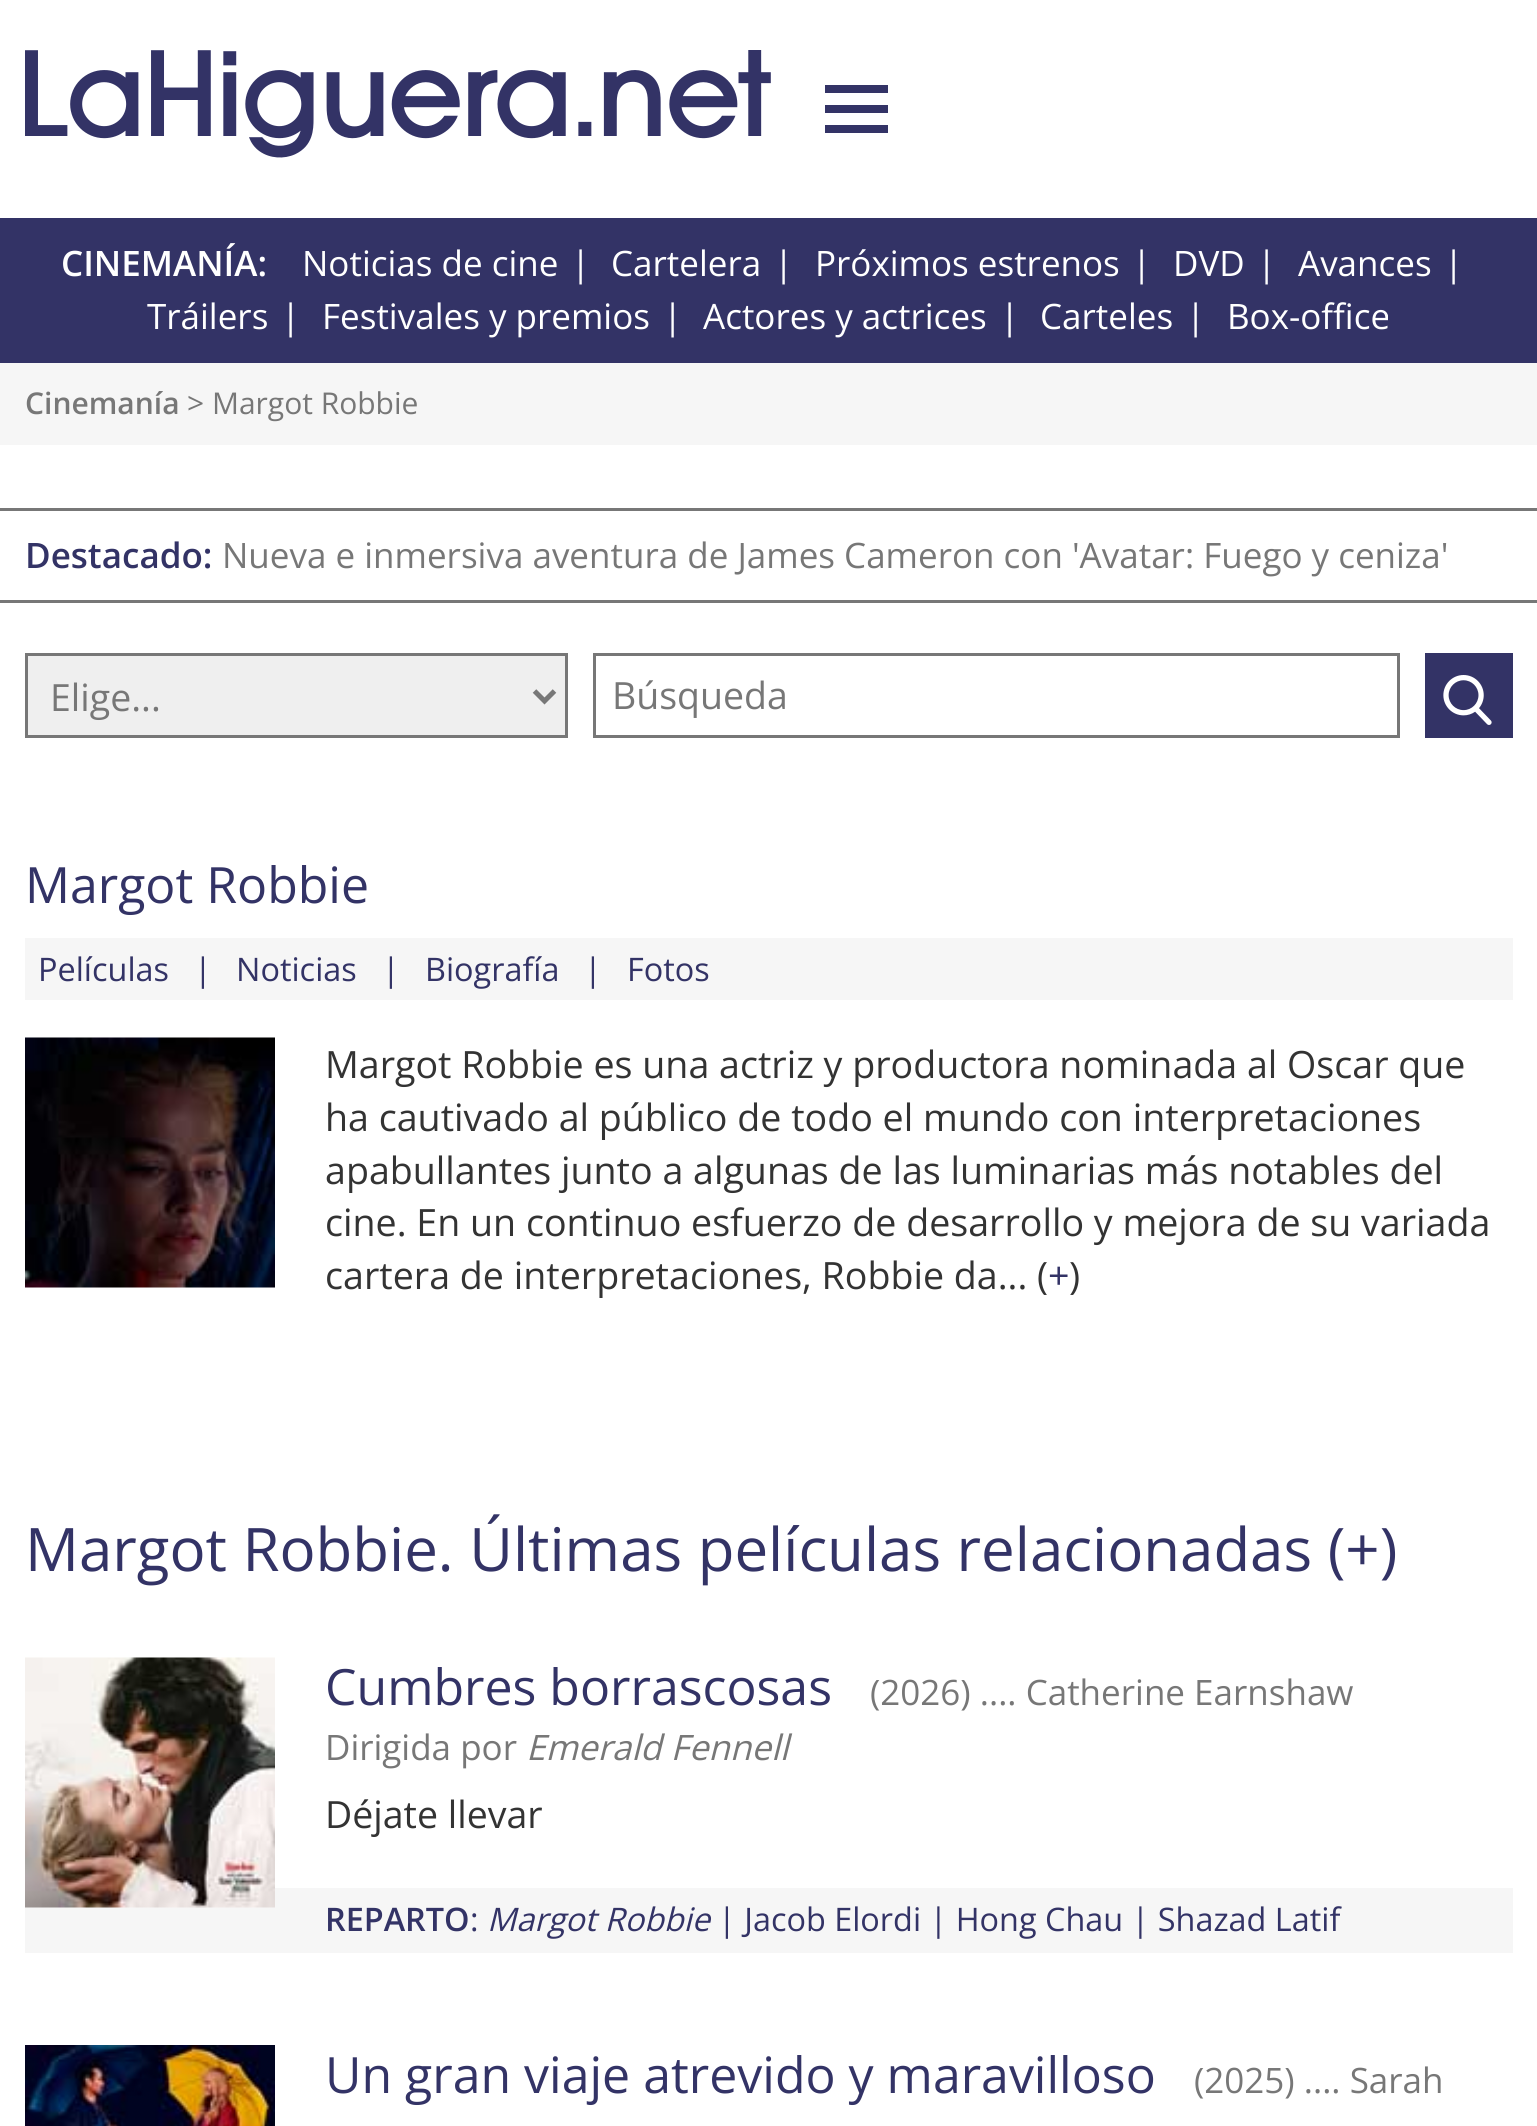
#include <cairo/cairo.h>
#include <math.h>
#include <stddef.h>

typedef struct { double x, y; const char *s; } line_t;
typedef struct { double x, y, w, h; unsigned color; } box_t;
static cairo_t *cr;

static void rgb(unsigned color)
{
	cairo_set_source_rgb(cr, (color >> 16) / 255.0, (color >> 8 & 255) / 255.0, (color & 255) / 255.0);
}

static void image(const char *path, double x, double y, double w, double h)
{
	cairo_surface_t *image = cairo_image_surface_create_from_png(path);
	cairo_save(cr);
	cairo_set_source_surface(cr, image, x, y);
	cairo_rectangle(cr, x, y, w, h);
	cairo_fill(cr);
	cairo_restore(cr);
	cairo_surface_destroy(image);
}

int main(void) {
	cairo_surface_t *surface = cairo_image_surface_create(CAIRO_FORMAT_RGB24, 1537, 2126);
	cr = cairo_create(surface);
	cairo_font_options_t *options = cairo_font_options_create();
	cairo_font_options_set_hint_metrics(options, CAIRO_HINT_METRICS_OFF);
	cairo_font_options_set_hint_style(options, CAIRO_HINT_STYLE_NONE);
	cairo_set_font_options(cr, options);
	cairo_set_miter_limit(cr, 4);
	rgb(0xffffff);
	cairo_paint(cr);
	image("img/1.png", 25, 50, 746, 108);
	{
		static const box_t items[] = {
			{825, 85, 63, 8, 0x333366},
			{825, 125, 63, 8, 0x333366},
			{825, 105, 63, 8, 0x333366},
			{0, 218, 1537, 145, 0x333366},
			{0, 363, 1537, 82, 0xf6f6f6},
			{0, 508, 1537, 3, 0x777777},
			{0, 600, 1537, 3, 0x777777},
		};
		for (size_t i = 0; i < sizeof items / sizeof *items; i++) {
			rgb(items[i].color);
			cairo_rectangle(cr, items[i].x, items[i].y, items[i].w, items[i].h);
			cairo_fill(cr);
		}
	}
	rgb(0xefefef);
	cairo_rectangle(cr, 26.5, 654.5, 540, 82);
	cairo_fill_preserve(cr);
	rgb(0x777777);
	cairo_set_line_width(cr, 3);
	cairo_stroke(cr);
	cairo_new_path(cr);
	cairo_move_to(cr, 534.5, 691);
	cairo_line_to(cr, 544.5, 701);
	cairo_line_to(cr, 554.5, 691);
	cairo_set_line_width(cr, 5);
	cairo_stroke(cr);
	cairo_rectangle(cr, 594.5, 654.5, 804, 82);
	cairo_set_line_width(cr, 3);
	cairo_stroke(cr);
	rgb(0x333366);
	cairo_rectangle(cr, 1425, 653, 88, 85);
	cairo_fill(cr);
	image("img/2.png", 1443, 675, 49, 50);
	rgb(0xf6f6f6);
	cairo_rectangle(cr, 25, 938, 1488, 62);
	cairo_fill(cr);
	image("img/3.png", 25, 1037, 250, 251);
	cairo_rectangle(cr, 25, 1888, 1488, 65);
	cairo_fill(cr);
	image("img/4.png", 25, 1657, 250, 251);
	image("img/5.png", 25, 2045, 250, 81);
	cairo_select_font_face(cr, "Open Sans SemiBold", CAIRO_FONT_SLANT_NORMAL, CAIRO_FONT_WEIGHT_NORMAL);
	cairo_set_font_size(cr, 35);
	rgb(0xffffff);
	cairo_move_to(cr, 61, 276);
	cairo_show_text(cr, "CINEMANÍA:");
	cairo_select_font_face(cr, "Open Sans", CAIRO_FONT_SLANT_NORMAL, CAIRO_FONT_WEIGHT_NORMAL);
	{
		static const line_t items[] = {
			{302, 276, "Noticias de cine"},
			{571, 276, "|"},
			{611, 276, "Cartelera"},
			{774, 276, "|"},
			{815, 276, "Próximos estrenos"},
			{1132, 276, "|"},
			{1173, 276, "DVD"},
			{1257, 276, "|"},
			{1298, 276, "Avances"},
			{1444, 276, "|"},
			{147, 329, "Tráilers"},
			{281, 329, "|"},
			{322, 329, "Festivales y premios"},
			{663, 329, "|"},
			{703, 329, "Actores y actrices"},
			{1000, 329, "|"},
			{1040, 329, "Carteles"},
			{1186, 329, "|"},
			{1227, 329, "Box-office"},
		};
		for (size_t i = 0; i < sizeof items / sizeof *items; i++) {
			cairo_move_to(cr, items[i].x, items[i].y);
			cairo_show_text(cr, items[i].s);
		}
	}
	cairo_select_font_face(cr, "Open Sans SemiBold", CAIRO_FONT_SLANT_NORMAL, CAIRO_FONT_WEIGHT_NORMAL);
	cairo_set_font_size(cr, 30);
	rgb(0x777777);
	cairo_move_to(cr, 25, 414);
	cairo_show_text(cr, "Cinemanía");
	cairo_select_font_face(cr, "Open Sans", CAIRO_FONT_SLANT_NORMAL, CAIRO_FONT_WEIGHT_NORMAL);
	cairo_move_to(cr, 187, 414);
	cairo_show_text(cr, "> Margot Robbie");
	cairo_select_font_face(cr, "Open Sans SemiBold", CAIRO_FONT_SLANT_NORMAL, CAIRO_FONT_WEIGHT_NORMAL);
	cairo_set_font_size(cr, 35);
	rgb(0x333366);
	cairo_move_to(cr, 25, 568);
	cairo_show_text(cr, "Destacado:");
	cairo_select_font_face(cr, "Open Sans", CAIRO_FONT_SLANT_NORMAL, CAIRO_FONT_WEIGHT_NORMAL);
	rgb(0x777777);
	cairo_move_to(cr, 222, 568);
	cairo_show_text(cr, "Nueva e inmersiva aventura de James Cameron con 'Avatar: Fuego y ceniza'");
	cairo_set_font_size(cr, 37.5);
	cairo_move_to(cr, 50, 711);
	cairo_show_text(cr, "Elige...");
	cairo_move_to(cr, 612, 709);
	cairo_show_text(cr, "Búsqueda");
	cairo_set_font_size(cr, 50);
	rgb(0x333366);
	cairo_move_to(cr, 25, 903);
	cairo_show_text(cr, "Margot Robbie");
	cairo_set_font_size(cr, 32.4);
	{
		static const line_t items[] = {
			{38, 981, "Películas"},
			{194, 981, "|"},
			{236, 981, "Noticias"},
			{382, 981, "|"},
			{425, 981, "Biografía"},
			{584, 981, "|"},
			{627, 981, "Fotos"},
		};
		for (size_t i = 0; i < sizeof items / sizeof *items; i++) {
			cairo_move_to(cr, items[i].x, items[i].y);
			cairo_show_text(cr, items[i].s);
		}
	}
	cairo_set_font_size(cr, 37.6);
	rgb(0x333333);
	{
		static const line_t items[] = {
			{325, 1078, "Margot Robbie es una actriz y productora nominada al Oscar que"},
			{325, 1131, "ha cautivado al público de todo el mundo con interpretaciones"},
			{325, 1184, "apabullantes junto a algunas de las luminarias más notables del"},
			{325, 1236, "cine. En un continuo esfuerzo de desarrollo y mejora de su variada"},
			{325, 1289, "cartera de interpretaciones, Robbie da... ("},
		};
		for (size_t i = 0; i < sizeof items / sizeof *items; i++) {
			cairo_move_to(cr, items[i].x, items[i].y);
			cairo_show_text(cr, items[i].s);
		}
	}
	rgb(0x333366);
	cairo_move_to(cr, 1048, 1289);
	cairo_show_text(cr, "+");
	rgb(0x333333);
	cairo_move_to(cr, 1069, 1289);
	cairo_show_text(cr, ")");
	cairo_set_font_size(cr, 60);
	rgb(0x333366);
	cairo_move_to(cr, 25, 1571);
	cairo_show_text(cr, "Margot Robbie. Últimas películas relacionadas (+)");
	cairo_set_font_size(cr, 50);
	cairo_move_to(cr, 325, 1705);
	cairo_show_text(cr, "Cumbres borrascosas");
	cairo_set_font_size(cr, 35);
	rgb(0x777777);
	cairo_move_to(cr, 870, 1705);
	cairo_show_text(cr, "(2026) .... Catherine Earnshaw");
	cairo_move_to(cr, 325, 1760);
	cairo_show_text(cr, "Dirigida por");
	cairo_select_font_face(cr, "Open Sans", CAIRO_FONT_SLANT_ITALIC, CAIRO_FONT_WEIGHT_NORMAL);
	cairo_move_to(cr, 526, 1760);
	cairo_show_text(cr, "Emerald Fennell");
	cairo_select_font_face(cr, "Open Sans", CAIRO_FONT_SLANT_NORMAL, CAIRO_FONT_WEIGHT_NORMAL);
	cairo_set_font_size(cr, 37.5);
	rgb(0x333333);
	cairo_move_to(cr, 325, 1828);
	cairo_show_text(cr, "Déjate llevar");
	cairo_select_font_face(cr, "Open Sans SemiBold", CAIRO_FONT_SLANT_NORMAL, CAIRO_FONT_WEIGHT_NORMAL);
	cairo_set_font_size(cr, 32.4);
	rgb(0x333366);
	cairo_move_to(cr, 325, 1931);
	cairo_show_text(cr, "REPARTO");
	cairo_select_font_face(cr, "Open Sans", CAIRO_FONT_SLANT_NORMAL, CAIRO_FONT_WEIGHT_NORMAL);
	cairo_move_to(cr, 470, 1931);
	cairo_show_text(cr, ":");
	cairo_select_font_face(cr, "Open Sans", CAIRO_FONT_SLANT_ITALIC, CAIRO_FONT_WEIGHT_NORMAL);
	cairo_move_to(cr, 487, 1931);
	cairo_show_text(cr, "Margot Robbie");
	cairo_select_font_face(cr, "Open Sans", CAIRO_FONT_SLANT_NORMAL, CAIRO_FONT_WEIGHT_NORMAL);
	cairo_move_to(cr, 718, 1931);
	cairo_show_text(cr, "| Jacob Elordi | Hong Chau | Shazad Latif");
	cairo_set_font_size(cr, 50);
	cairo_move_to(cr, 325, 2093);
	cairo_show_text(cr, "Un gran viaje atrevido y maravilloso");
	cairo_set_font_size(cr, 35);
	rgb(0x777777);
	cairo_move_to(cr, 1194, 2093);
	cairo_show_text(cr, "(2025) .... Sarah");
	cairo_surface_write_to_png(surface, "page.png");
	cairo_font_options_destroy(options);
	cairo_destroy(cr);
	cairo_surface_destroy(surface);
	return 0;
}
